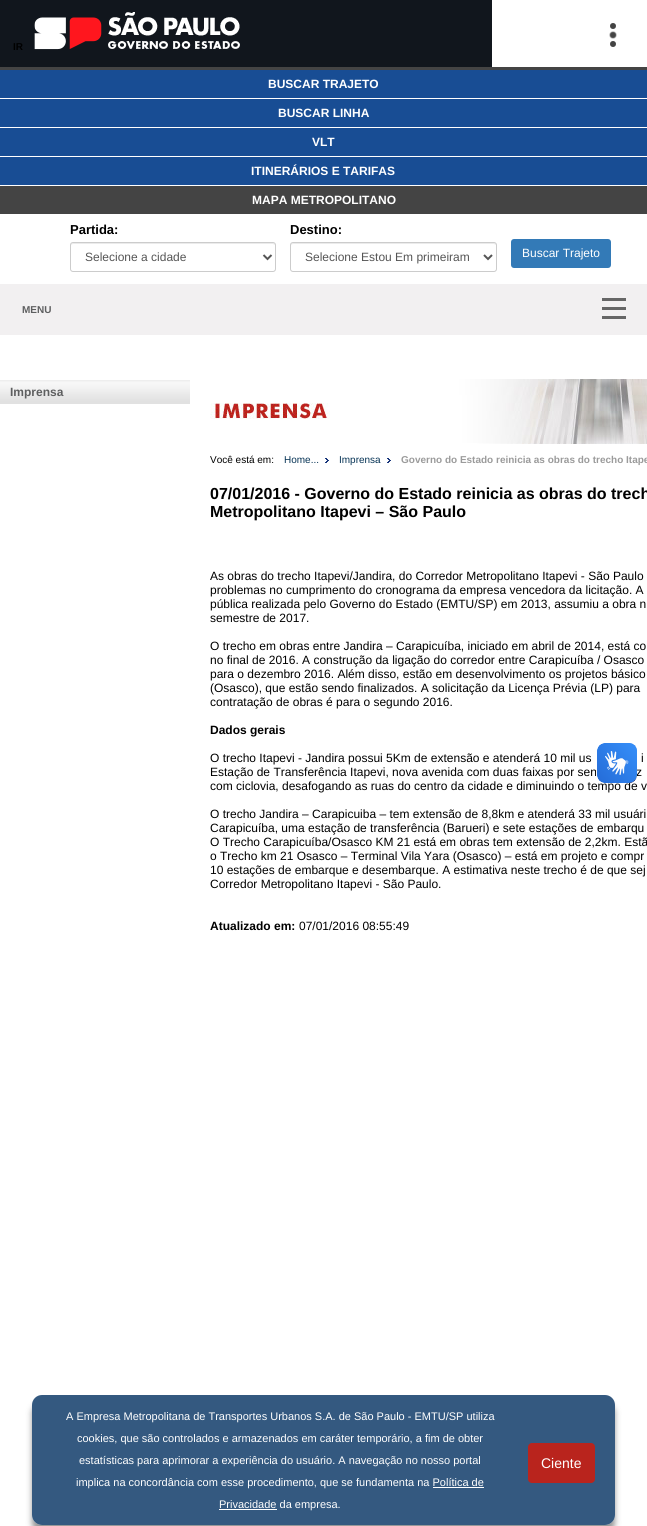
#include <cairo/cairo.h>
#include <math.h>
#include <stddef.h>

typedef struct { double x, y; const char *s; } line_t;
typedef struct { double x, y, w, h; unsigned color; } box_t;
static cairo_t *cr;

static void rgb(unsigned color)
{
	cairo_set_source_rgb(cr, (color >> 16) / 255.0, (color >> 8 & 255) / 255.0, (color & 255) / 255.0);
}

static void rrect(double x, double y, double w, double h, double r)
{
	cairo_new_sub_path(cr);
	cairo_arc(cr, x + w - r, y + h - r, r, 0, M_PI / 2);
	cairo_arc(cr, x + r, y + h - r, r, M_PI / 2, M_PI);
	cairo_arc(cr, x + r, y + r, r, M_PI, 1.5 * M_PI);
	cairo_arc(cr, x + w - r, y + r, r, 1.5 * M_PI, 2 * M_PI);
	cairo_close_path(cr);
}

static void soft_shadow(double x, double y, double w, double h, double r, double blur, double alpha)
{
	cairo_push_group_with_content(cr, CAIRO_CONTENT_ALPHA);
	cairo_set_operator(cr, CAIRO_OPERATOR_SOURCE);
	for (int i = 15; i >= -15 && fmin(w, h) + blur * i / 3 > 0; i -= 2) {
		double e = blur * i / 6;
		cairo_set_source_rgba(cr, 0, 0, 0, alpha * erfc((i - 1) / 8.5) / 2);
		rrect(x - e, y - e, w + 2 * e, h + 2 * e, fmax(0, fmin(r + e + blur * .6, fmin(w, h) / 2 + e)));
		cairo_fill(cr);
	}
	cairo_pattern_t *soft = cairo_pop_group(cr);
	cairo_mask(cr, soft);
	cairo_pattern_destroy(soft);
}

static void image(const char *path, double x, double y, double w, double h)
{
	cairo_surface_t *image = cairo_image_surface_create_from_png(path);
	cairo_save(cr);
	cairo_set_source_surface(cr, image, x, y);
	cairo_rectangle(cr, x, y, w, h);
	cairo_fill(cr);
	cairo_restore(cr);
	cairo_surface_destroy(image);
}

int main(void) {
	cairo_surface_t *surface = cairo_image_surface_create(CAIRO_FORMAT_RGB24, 647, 1526);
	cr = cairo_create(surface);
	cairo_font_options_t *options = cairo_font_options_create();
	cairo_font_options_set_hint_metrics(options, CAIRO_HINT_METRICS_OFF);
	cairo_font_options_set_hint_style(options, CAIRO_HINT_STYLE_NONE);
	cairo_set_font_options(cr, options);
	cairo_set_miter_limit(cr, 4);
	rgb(0xffffff);
	cairo_paint(cr);
	rgb(0x444444);
	cairo_rectangle(cr, 0, 67, 647, 3);
	cairo_fill(cr);
	rgb(0x11161d);
	cairo_rectangle(cr, 0, 0, 492, 67);
	cairo_fill(cr);
	image("img/1.png", 34, 12, 206, 38);
	rgb(0x444444);
	cairo_arc(cr, 613, 26, 3, 0, 2 * M_PI);
	cairo_fill(cr);
	rgb(0x000000);
	soft_shadow(610, 32, 6, 6, 3, 0.5, 0.12);
	soft_shadow(610, 32, 6, 6, 3, 0.5, 0.16);
	rgb(0x444444);
	soft_shadow(610, 32, 6, 6, 3, 0.5, 1);
	rgb(0x444444);
	cairo_arc(cr, 613, 44, 3, 0, 2 * M_PI);
	cairo_fill(cr);
	{
		static const box_t items[] = {
			{0, 70, 647, 28, 0x184d94},
			{0, 99, 647, 28, 0x184d94},
			{0, 128, 647, 28, 0x184d94},
			{0, 157, 647, 28, 0x184d94},
			{0, 186, 647, 28, 0x444444},
		};
		for (size_t i = 0; i < sizeof items / sizeof *items; i++) {
			rgb(items[i].color);
			cairo_rectangle(cr, items[i].x, items[i].y, items[i].w, items[i].h);
			cairo_fill(cr);
		}
	}
	rgb(0xebebeb);
	cairo_new_path(cr);
	cairo_move_to(cr, 73, 244);
	cairo_line_to(cr, 273, 244);
	cairo_line_to(cr, 275, 245);
	cairo_line_to(cr, 275, 246);
	cairo_curve_to(cr, 275, 245, 275, 243, 273, 243);
	cairo_line_to(cr, 73, 243);
	cairo_curve_to(cr, 71, 243, 71, 245, 71, 246);
	cairo_curve_to(cr, 71, 245, 72, 244, 73, 244);
	cairo_close_path(cr);
	cairo_fill(cr);
	rrect(70.5, 242.5, 205, 29, 2.5);
	rgb(0xcccccc);
	cairo_set_line_width(cr, 1);
	cairo_stroke(cr);
	cairo_new_path(cr);
	cairo_move_to(cr, 263.5, 255);
	cairo_line_to(cr, 267.5, 259);
	cairo_line_to(cr, 271.5, 255);
	rgb(0x555555);
	cairo_set_line_width(cr, 2);
	cairo_stroke(cr);
	rgb(0xebebeb);
	cairo_new_path(cr);
	cairo_move_to(cr, 293, 244);
	cairo_line_to(cr, 494, 244);
	cairo_line_to(cr, 496, 245);
	cairo_line_to(cr, 496, 246);
	cairo_curve_to(cr, 496, 245, 496, 243, 494, 243);
	cairo_line_to(cr, 293, 243);
	cairo_curve_to(cr, 291, 243, 291, 245, 291, 246);
	cairo_curve_to(cr, 291, 245, 292, 244, 293, 244);
	cairo_close_path(cr);
	cairo_fill(cr);
	rrect(290.5, 242.5, 206, 29, 2.5);
	rgb(0xcccccc);
	cairo_set_line_width(cr, 1);
	cairo_stroke(cr);
	cairo_new_path(cr);
	cairo_move_to(cr, 484, 255);
	cairo_line_to(cr, 488, 259);
	cairo_line_to(cr, 492, 255);
	rgb(0x555555);
	cairo_set_line_width(cr, 2);
	cairo_stroke(cr);
	rgb(0x337ab7);
	rrect(511, 239, 100, 29, 3);
	cairo_fill(cr);
	rgb(0xf2f0f1);
	cairo_rectangle(cr, 0, 284, 647, 51);
	cairo_fill(cr);
	image("img/2.png", 602, 298, 24, 21);
	image("img/3.png", 0, 380, 190, 24);
	image("img/4.png", 210, 379, 437, 65);
	image("img/5.png", 325, 458, 4, 5);
	image("img/5.png", 387, 458, 4, 5);
	cairo_save(cr);
	cairo_set_fill_rule(cr, CAIRO_FILL_RULE_EVEN_ODD);
	cairo_new_path(cr);
	cairo_move_to(cr, 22, 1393);
	cairo_line_to(cr, 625, 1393);
	cairo_line_to(cr, 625, 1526);
	cairo_line_to(cr, 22, 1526);
	cairo_close_path(cr);
	cairo_move_to(cr, 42, 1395);
	cairo_line_to(cr, 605, 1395);
	cairo_curve_to(cr, 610.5, 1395, 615, 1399.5, 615, 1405);
	cairo_line_to(cr, 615, 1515);
	cairo_curve_to(cr, 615, 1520.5, 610.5, 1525, 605, 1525);
	cairo_line_to(cr, 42, 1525);
	cairo_curve_to(cr, 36.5, 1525, 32, 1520.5, 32, 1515);
	cairo_line_to(cr, 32, 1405);
	cairo_curve_to(cr, 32, 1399.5, 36.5, 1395, 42, 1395);
	cairo_close_path(cr);
	cairo_clip(cr);
	rgb(0x000000);
	soft_shadow(32, 1403, 583, 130, 10, 3, 0.41);
	cairo_restore(cr);
	cairo_set_source_rgba(cr, 0.008, 0.188, 0.376, 0.8);
	rrect(32, 1395, 583, 130, 10);
	cairo_fill(cr);
	rgb(0xffffff);
	cairo_rectangle(cr, 433, 1487, 51, 1);
	cairo_fill(cr);
	cairo_rectangle(cr, 219, 1509, 58, 1);
	cairo_fill(cr);
	rgb(0xb9241d);
	rrect(528, 1443, 67, 40, 4);
	cairo_fill(cr);
	cairo_select_font_face(cr, "Liberation Sans", CAIRO_FONT_SLANT_NORMAL, CAIRO_FONT_WEIGHT_BOLD);
	cairo_set_font_size(cr, 10);
	rgb(0x000000);
	cairo_move_to(cr, 13, 50);
	cairo_show_text(cr, "IR");
	cairo_set_font_size(cr, 12);
	rgb(0xffffff);
	{
		static const line_t items[] = {
			{268, 88, "BUSCAR TRAJETO"},
			{278, 117, "BUSCAR LINHA"},
			{312, 146, "VLT"},
			{251, 175, "ITINERÁRIOS E TARIFAS"},
			{252, 204, "MAPA METROPOLITANO"},
		};
		for (size_t i = 0; i < sizeof items / sizeof *items; i++) {
			cairo_move_to(cr, items[i].x, items[i].y);
			cairo_show_text(cr, items[i].s);
		}
	}
	cairo_set_font_size(cr, 13);
	rgb(0x000000);
	cairo_move_to(cr, 70, 234);
	cairo_show_text(cr, "Partida:");
	cairo_select_font_face(cr, "Liberation Sans", CAIRO_FONT_SLANT_NORMAL, CAIRO_FONT_WEIGHT_NORMAL);
	cairo_set_font_size(cr, 12);
	rgb(0x555555);
	cairo_move_to(cr, 85, 261);
	cairo_show_text(cr, "Selecione a cidade");
	cairo_select_font_face(cr, "Liberation Sans", CAIRO_FONT_SLANT_NORMAL, CAIRO_FONT_WEIGHT_BOLD);
	cairo_set_font_size(cr, 13);
	rgb(0x000000);
	cairo_move_to(cr, 290, 234);
	cairo_show_text(cr, "Destino:");
	cairo_select_font_face(cr, "Liberation Sans", CAIRO_FONT_SLANT_NORMAL, CAIRO_FONT_WEIGHT_NORMAL);
	cairo_set_font_size(cr, 12);
	rgb(0x555555);
	cairo_move_to(cr, 305, 261);
	cairo_show_text(cr, "Selecione Estou Em primeiram");
	rgb(0xffffff);
	cairo_move_to(cr, 522, 257);
	cairo_show_text(cr, "Buscar Trajeto");
	cairo_select_font_face(cr, "Liberation Sans", CAIRO_FONT_SLANT_NORMAL, CAIRO_FONT_WEIGHT_BOLD);
	cairo_set_font_size(cr, 10);
	rgb(0x5e5f60);
	cairo_move_to(cr, 22, 313);
	cairo_show_text(cr, "MENU");
	cairo_set_font_size(cr, 12);
	cairo_move_to(cr, 10, 396);
	cairo_show_text(cr, "Imprensa");
	cairo_select_font_face(cr, "Liberation Sans", CAIRO_FONT_SLANT_NORMAL, CAIRO_FONT_WEIGHT_NORMAL);
	cairo_set_font_size(cr, 10);
	rgb(0x000000);
	cairo_move_to(cr, 210, 463);
	cairo_show_text(cr, "Você está em:");
	rgb(0x063355);
	cairo_move_to(cr, 284, 463);
	cairo_show_text(cr, "Home...");
	cairo_move_to(cr, 339, 463);
	cairo_show_text(cr, "Imprensa");
	cairo_select_font_face(cr, "Liberation Sans", CAIRO_FONT_SLANT_NORMAL, CAIRO_FONT_WEIGHT_BOLD);
	rgb(0x9b9b9b);
	cairo_move_to(cr, 401, 463);
	cairo_show_text(cr, "Governo do Estado reinicia as obras do trecho Itape");
	cairo_set_font_size(cr, 16);
	rgb(0x000000);
	cairo_move_to(cr, 210, 499);
	cairo_show_text(cr, "07/01/2016 - Governo do Estado reinicia as obras do trech");
	cairo_move_to(cr, 210, 517);
	cairo_show_text(cr, "Metropolitano Itapevi – São Paulo");
	cairo_select_font_face(cr, "Liberation Sans", CAIRO_FONT_SLANT_NORMAL, CAIRO_FONT_WEIGHT_NORMAL);
	cairo_set_font_size(cr, 12);
	{
		static const line_t items[] = {
			{210, 580, "As obras do trecho Itapevi/Jandira, do Corredor Metropolitano Itapevi - São Paulo"},
			{210, 594, "problemas no cumprimento do cronograma da empresa vencedora da licitação. A"},
			{210, 608, "pública realizada pelo Governo do Estado (EMTU/SP) em 2013, assumiu a obra n"},
			{210, 622, "semestre de 2017."},
			{210, 650, "O trecho em obras entre Jandira – Carapicuíba, iniciado em abril de 2014, está co"},
			{210, 664, "no final de 2016. A construção da ligação do corredor entre Carapicuíba / Osasco"},
			{210, 678, "para o dezembro 2016. Além disso, estão em desenvolvimento os projetos básico"},
			{210, 692, "(Osasco), que estão sendo finalizados. A solicitação da Licença Prévia (LP) para"},
			{210, 706, "contratação de obras é para o segundo 2016."},
		};
		for (size_t i = 0; i < sizeof items / sizeof *items; i++) {
			cairo_move_to(cr, items[i].x, items[i].y);
			cairo_show_text(cr, items[i].s);
		}
	}
	cairo_select_font_face(cr, "Liberation Sans", CAIRO_FONT_SLANT_NORMAL, CAIRO_FONT_WEIGHT_BOLD);
	cairo_move_to(cr, 210, 734);
	cairo_show_text(cr, "Dados gerais");
	cairo_select_font_face(cr, "Liberation Sans", CAIRO_FONT_SLANT_NORMAL, CAIRO_FONT_WEIGHT_NORMAL);
	{
		static const line_t items[] = {
			{210, 762, "O trecho Itapevi - Jandira possui 5Km de extensão e atenderá 10 mil us"},
			{641, 762, "i"},
			{210, 776, "Estação de Transferência Itapevi, nova avenida com duas faixas por sen"},
			{636, 776, "z"},
			{210, 790, "com ciclovia, desafogando as ruas do centro da cidade e diminuindo o tempo de v"},
			{210, 818, "O trecho Jandira – Carapicuiba – tem extensão de 8,8km e atenderá 33 mil usuári"},
			{210, 832, "Carapicuíba, uma estação de transferência (Barueri) e sete estações de embarqu"},
			{210, 846, "O Trecho Carapicuíba/Osasco KM 21 está em obras tem extensão de 2,2km. Estã"},
			{210, 860, "o Trecho km 21 Osasco – Terminal Vila Yara (Osasco) – está em projeto e compr"},
			{210, 874, "10 estações de embarque e desembarque. A estimativa neste trecho é de que sej"},
			{210, 888, "Corredor Metropolitano Itapevi - São Paulo."},
		};
		for (size_t i = 0; i < sizeof items / sizeof *items; i++) {
			cairo_move_to(cr, items[i].x, items[i].y);
			cairo_show_text(cr, items[i].s);
		}
	}
	cairo_select_font_face(cr, "Liberation Sans", CAIRO_FONT_SLANT_NORMAL, CAIRO_FONT_WEIGHT_BOLD);
	cairo_move_to(cr, 210, 930);
	cairo_show_text(cr, "Atualizado em:");
	cairo_select_font_face(cr, "Liberation Sans", CAIRO_FONT_SLANT_NORMAL, CAIRO_FONT_WEIGHT_NORMAL);
	cairo_move_to(cr, 299, 930);
	cairo_show_text(cr, "07/01/2016 08:55:49");
	image("img/6.png", 597, 743, 40, 40);
	image("img/7.png", 597, 743, 40, 40);
	cairo_set_font_size(cr, 11);
	rgb(0xffffff);
	{
		static const line_t items[] = {
			{66, 1420, "A Empresa Metropolitana de Transportes Urbanos S.A. de São Paulo - EMTU/SP utiliza"},
			{77, 1442, "cookies, que são controlados e armazenados em caráter temporário, a fim de obter"},
			{79, 1464, "estatísticas para aprimorar a experiência do usuário. A navegação no nosso portal"},
			{76, 1486, "implica na concordância com esse procedimento, que se fundamenta na Política de"},
			{219, 1508, "Privacidade da empresa."},
		};
		for (size_t i = 0; i < sizeof items / sizeof *items; i++) {
			cairo_move_to(cr, items[i].x, items[i].y);
			cairo_show_text(cr, items[i].s);
		}
	}
	cairo_set_font_size(cr, 14);
	cairo_move_to(cr, 541, 1468);
	cairo_show_text(cr, "Ciente");
	cairo_surface_write_to_png(surface, "page.png");
	cairo_font_options_destroy(options);
	cairo_destroy(cr);
	cairo_surface_destroy(surface);
	return 0;
}
